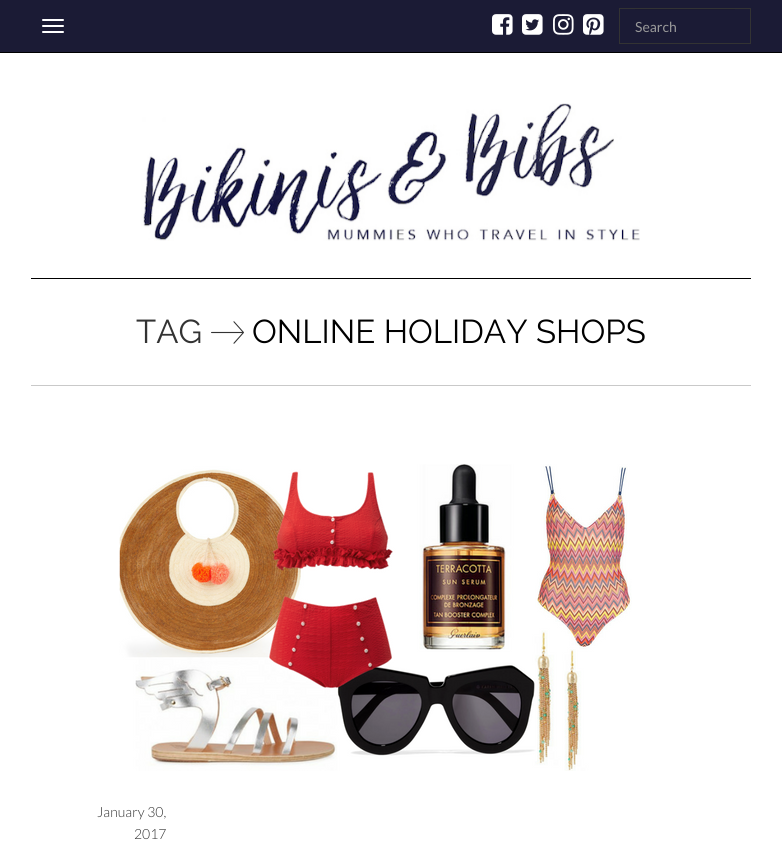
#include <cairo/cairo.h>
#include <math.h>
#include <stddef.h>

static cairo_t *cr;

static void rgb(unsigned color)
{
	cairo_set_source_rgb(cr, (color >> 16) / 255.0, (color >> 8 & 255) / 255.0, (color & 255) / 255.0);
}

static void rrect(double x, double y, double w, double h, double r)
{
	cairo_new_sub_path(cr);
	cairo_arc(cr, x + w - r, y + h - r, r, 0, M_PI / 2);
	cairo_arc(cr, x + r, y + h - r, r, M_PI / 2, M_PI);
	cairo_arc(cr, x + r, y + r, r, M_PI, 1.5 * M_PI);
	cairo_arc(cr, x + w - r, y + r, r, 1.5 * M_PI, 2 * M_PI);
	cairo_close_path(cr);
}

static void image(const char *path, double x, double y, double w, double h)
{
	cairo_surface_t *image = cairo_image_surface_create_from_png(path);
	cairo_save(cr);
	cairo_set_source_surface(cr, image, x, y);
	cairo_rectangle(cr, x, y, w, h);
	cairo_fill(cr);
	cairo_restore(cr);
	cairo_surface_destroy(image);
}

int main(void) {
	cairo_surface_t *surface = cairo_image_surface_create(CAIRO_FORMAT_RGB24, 782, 859);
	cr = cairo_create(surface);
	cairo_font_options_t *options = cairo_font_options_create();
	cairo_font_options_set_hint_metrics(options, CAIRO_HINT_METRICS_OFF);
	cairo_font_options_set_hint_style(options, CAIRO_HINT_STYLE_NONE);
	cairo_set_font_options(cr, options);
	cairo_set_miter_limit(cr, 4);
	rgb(0xffffff);
	cairo_paint(cr);
	rgb(0x1b1b35);
	cairo_rectangle(cr, 0, 0, 782, 52);
	cairo_fill(cr);
	rgb(0x000000);
	cairo_rectangle(cr, 0, 52, 782, 1);
	cairo_fill(cr);
	rgb(0xffffff);
	rrect(42, 19, 22, 2, 1);
	cairo_fill(cr);
	rrect(42, 25, 22, 2, 1);
	cairo_fill(cr);
	rrect(42, 31, 22, 2, 1);
	cairo_fill(cr);
	image("img/1.png", 492, 14, 21, 21);
	image("img/2.png", 522, 14, 21, 21);
	image("img/3.png", 553, 14, 21, 21);
	image("img/4.png", 583, 14, 21, 21);
	cairo_rectangle(cr, 619.5, 8.5, 131, 35);
	rgb(0x333333);
	cairo_set_line_width(cr, 1);
	cairo_stroke(cr);
	rgb(0x191931);
	cairo_rectangle(cr, 635, 9, 100, 1);
	cairo_fill(cr);
	rgb(0x000000);
	cairo_rectangle(cr, 31, 278, 720, 1);
	cairo_fill(cr);
	image("img/5.png", 141, 103, 499, 138);
	rgb(0xc9c9c9);
	cairo_rectangle(cr, 31, 385, 720, 1);
	cairo_fill(cr);
	image("img/6.png", 211, 321, 33, 23);
	image("img/7.png", 119, 464, 513, 307);
	cairo_select_font_face(cr, "Lato", CAIRO_FONT_SLANT_NORMAL, CAIRO_FONT_WEIGHT_NORMAL);
	cairo_set_font_size(cr, 14);
	rgb(0x999999);
	cairo_move_to(cr, 635, 32);
	cairo_show_text(cr, "Search");
	cairo_select_font_face(cr, "Raleway", CAIRO_FONT_SLANT_NORMAL, CAIRO_FONT_WEIGHT_NORMAL);
	cairo_set_font_size(cr, 33);
	rgb(0x333333);
	cairo_move_to(cr, 136, 343);
	cairo_show_text(cr, "TAG");
	rgb(0x000000);
	cairo_move_to(cr, 252, 343);
	cairo_show_text(cr, "ONLINE HOLIDAY SHOPS");
	cairo_select_font_face(cr, "Lato Light", CAIRO_FONT_SLANT_NORMAL, CAIRO_FONT_WEIGHT_NORMAL);
	cairo_set_font_size(cr, 14);
	rgb(0x333333);
	cairo_move_to(cr, 97, 817);
	cairo_show_text(cr, "January 30,");
	cairo_move_to(cr, 134, 839);
	cairo_show_text(cr, "2017");
	cairo_surface_write_to_png(surface, "page.png");
	cairo_font_options_destroy(options);
	cairo_destroy(cr);
	cairo_surface_destroy(surface);
	return 0;
}
